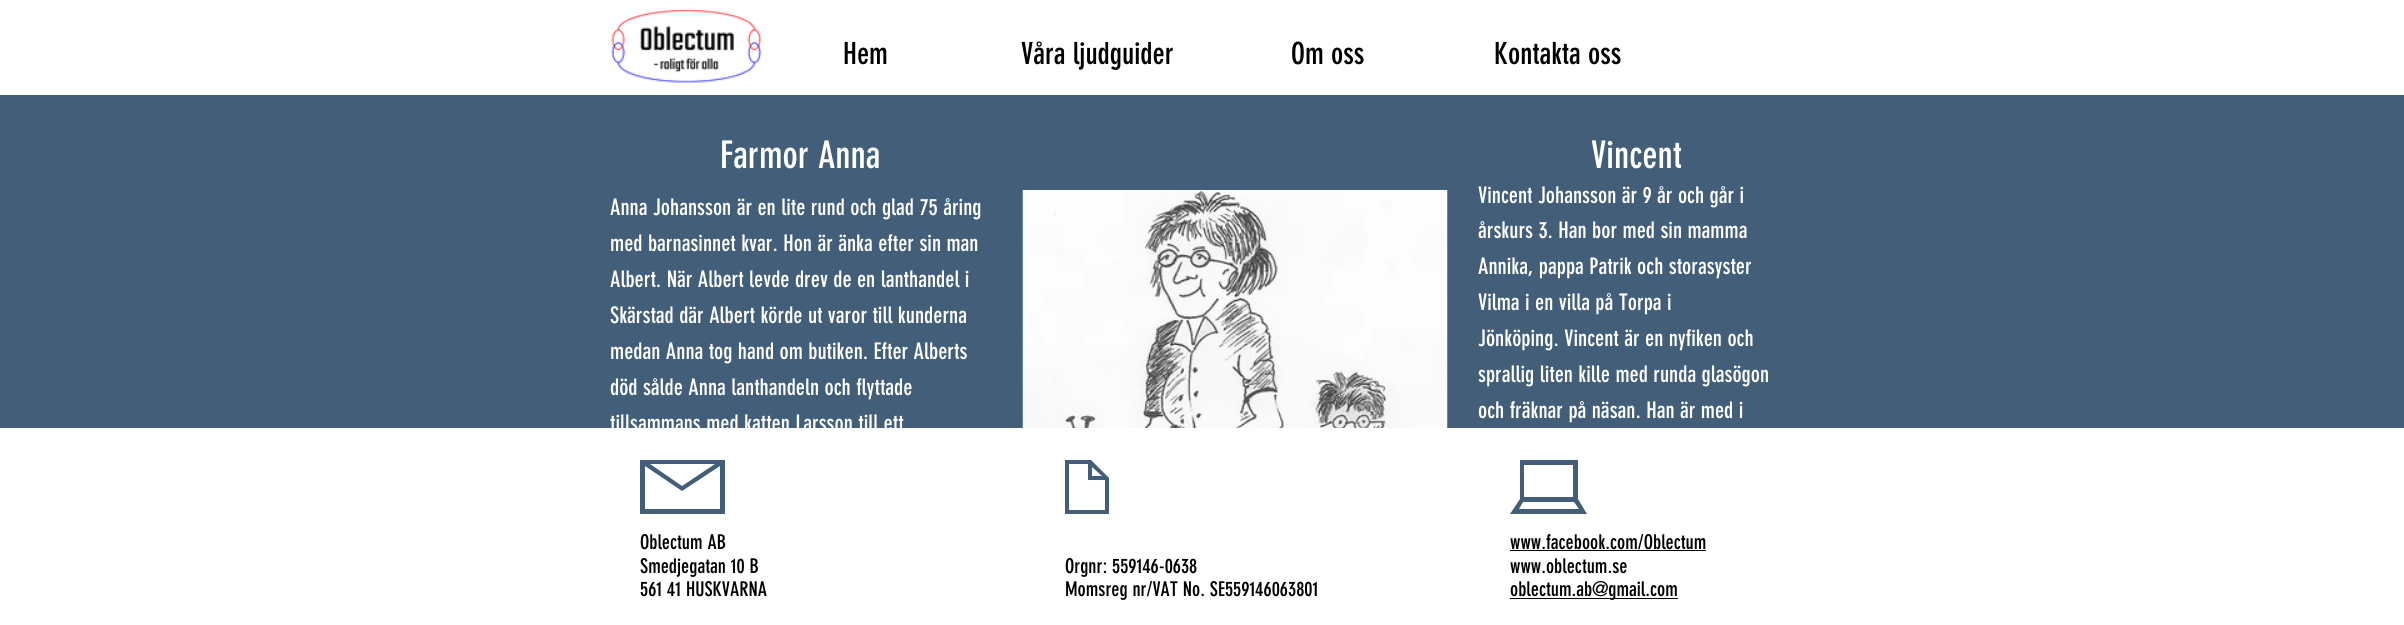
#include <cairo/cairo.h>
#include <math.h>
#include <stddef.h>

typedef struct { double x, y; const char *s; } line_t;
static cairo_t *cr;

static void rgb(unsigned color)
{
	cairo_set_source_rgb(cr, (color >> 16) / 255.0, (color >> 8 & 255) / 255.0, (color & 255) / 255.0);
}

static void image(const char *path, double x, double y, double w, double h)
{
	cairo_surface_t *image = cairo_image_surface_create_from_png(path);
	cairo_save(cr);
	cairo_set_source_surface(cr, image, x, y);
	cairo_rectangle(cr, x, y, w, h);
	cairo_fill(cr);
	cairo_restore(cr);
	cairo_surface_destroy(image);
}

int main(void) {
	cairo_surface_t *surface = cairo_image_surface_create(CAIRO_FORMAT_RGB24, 2404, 625);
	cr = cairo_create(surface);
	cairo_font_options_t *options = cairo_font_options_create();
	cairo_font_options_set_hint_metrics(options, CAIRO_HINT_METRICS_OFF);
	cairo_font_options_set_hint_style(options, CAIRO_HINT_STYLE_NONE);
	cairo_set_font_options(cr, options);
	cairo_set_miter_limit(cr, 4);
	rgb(0x425e78);
	cairo_paint(cr);
	rgb(0xffffff);
	cairo_rectangle(cr, 0, 0, 2404, 95);
	cairo_fill(cr);
	image("img/1.png", 611, 9, 151, 74);
	image("img/2.png", 1022, 190, 426, 238);
	cairo_rectangle(cr, 0, 428, 2404, 197);
	cairo_fill(cr);
	rgb(0x425e78);
	cairo_new_path(cr);
	cairo_move_to(cr, 640, 460);
	cairo_line_to(cr, 640, 514);
	cairo_line_to(cr, 725, 514);
	cairo_line_to(cr, 725, 460);
	cairo_close_path(cr);
	cairo_move_to(cr, 715, 464);
	cairo_line_to(cr, 682, 486);
	cairo_line_to(cr, 650, 464);
	cairo_close_path(cr);
	cairo_move_to(cr, 645, 509);
	cairo_line_to(cr, 645, 466);
	cairo_line_to(cr, 682, 491);
	cairo_line_to(cr, 720, 466);
	cairo_line_to(cr, 720, 509);
	cairo_close_path(cr);
	cairo_fill(cr);
	cairo_new_path(cr);
	cairo_move_to(cr, 1091, 460);
	cairo_line_to(cr, 1065, 460);
	cairo_line_to(cr, 1065, 514);
	cairo_line_to(cr, 1109, 514);
	cairo_line_to(cr, 1109, 478);
	cairo_close_path(cr);
	cairo_move_to(cr, 1092, 467);
	cairo_line_to(cr, 1102, 476);
	cairo_line_to(cr, 1092, 476);
	cairo_close_path(cr);
	cairo_move_to(cr, 1069, 510);
	cairo_line_to(cr, 1069, 464);
	cairo_line_to(cr, 1088, 464);
	cairo_line_to(cr, 1088, 480);
	cairo_line_to(cr, 1105, 480);
	cairo_line_to(cr, 1105, 510);
	cairo_close_path(cr);
	cairo_fill(cr);
	cairo_new_path(cr);
	cairo_move_to(cr, 1587, 514);
	cairo_line_to(cr, 1578, 499);
	cairo_line_to(cr, 1578, 460);
	cairo_line_to(cr, 1520, 460);
	cairo_line_to(cr, 1520, 499);
	cairo_line_to(cr, 1510, 514);
	cairo_close_path(cr);
	cairo_move_to(cr, 1519, 509);
	cairo_line_to(cr, 1523, 502);
	cairo_line_to(cr, 1574, 502);
	cairo_line_to(cr, 1579, 509);
	cairo_close_path(cr);
	cairo_move_to(cr, 1524, 465);
	cairo_line_to(cr, 1573, 465);
	cairo_line_to(cr, 1573, 497);
	cairo_line_to(cr, 1524, 497);
	cairo_close_path(cr);
	cairo_fill(cr);
	rgb(0x000000);
	cairo_rectangle(cr, 1510, 550, 196, 1);
	cairo_fill(cr);
	cairo_rectangle(cr, 1510, 598, 168, 1);
	cairo_fill(cr);
	cairo_select_font_face(cr, "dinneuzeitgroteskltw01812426", CAIRO_FONT_SLANT_NORMAL, CAIRO_FONT_WEIGHT_NORMAL);
	cairo_set_font_size(cr, 30);
	{
		static const line_t items[] = {
			{843, 64, "Hem"},
			{1021, 64, "Våra ljudguider"},
			{1291, 64, "Om oss"},
			{1494, 64, "Kontakta oss"},
		};
		for (size_t i = 0; i < sizeof items / sizeof *items; i++) {
			cairo_move_to(cr, items[i].x, items[i].y);
			cairo_show_text(cr, items[i].s);
		}
	}
	cairo_set_font_size(cr, 37.5);
	rgb(0xffffff);
	cairo_move_to(cr, 720, 168);
	cairo_show_text(cr, "Farmor Anna");
	cairo_move_to(cr, 1591, 168);
	cairo_show_text(cr, "Vincent");
	cairo_set_font_size(cr, 22.5);
	{
		static const line_t items[] = {
			{610, 215, "Anna Johansson är en lite rund och glad 75 åring"},
			{610, 251, "med barnasinnet kvar. Hon är änka efter sin man"},
			{610, 287, "Albert. När Albert levde drev de en lanthandel i"},
			{610, 323, "Skärstad där Albert körde ut varor till kunderna"},
			{610, 359, "medan Anna tog hand om butiken. Efter Alberts"},
			{610, 395, "död sålde Anna lanthandeln och flyttade"},
			{610, 431, "tillsammans med katten Larsson till ett"},
			{1478, 203, "Vincent Johansson är 9 år och går i"},
			{1478, 238, "årskurs 3. Han bor med sin mamma"},
			{1478, 274, "Annika, pappa Patrik och storasyster"},
			{1478, 310, "Vilma i en villa på Torpa i"},
			{1478, 346, "Jönköping. Vincent är en nyfiken och"},
			{1478, 382, "sprallig liten kille med runda glasögon"},
			{1478, 418, "och fräknar på näsan. Han är med i"},
		};
		for (size_t i = 0; i < sizeof items / sizeof *items; i++) {
			cairo_move_to(cr, items[i].x, items[i].y);
			cairo_show_text(cr, items[i].s);
		}
	}
	cairo_set_font_size(cr, 20);
	rgb(0x000000);
	{
		static const line_t items[] = {
			{640, 549, "Oblectum AB"},
			{640, 573, "Smedjegatan 10 B"},
			{640, 596, "561 41 HUSKVARNA"},
			{1065, 573, "Orgnr: 559146-0638"},
			{1065, 596, "Momsreg nr/VAT No. SE559146063801"},
			{1510, 549, "www.facebook.com/Oblectum"},
			{1510, 573, "www.oblectum.se"},
			{1510, 596, "oblectum.ab@gmail.com"},
		};
		for (size_t i = 0; i < sizeof items / sizeof *items; i++) {
			cairo_move_to(cr, items[i].x, items[i].y);
			cairo_show_text(cr, items[i].s);
		}
	}
	cairo_surface_write_to_png(surface, "page.png");
	cairo_font_options_destroy(options);
	cairo_destroy(cr);
	cairo_surface_destroy(surface);
	return 0;
}
